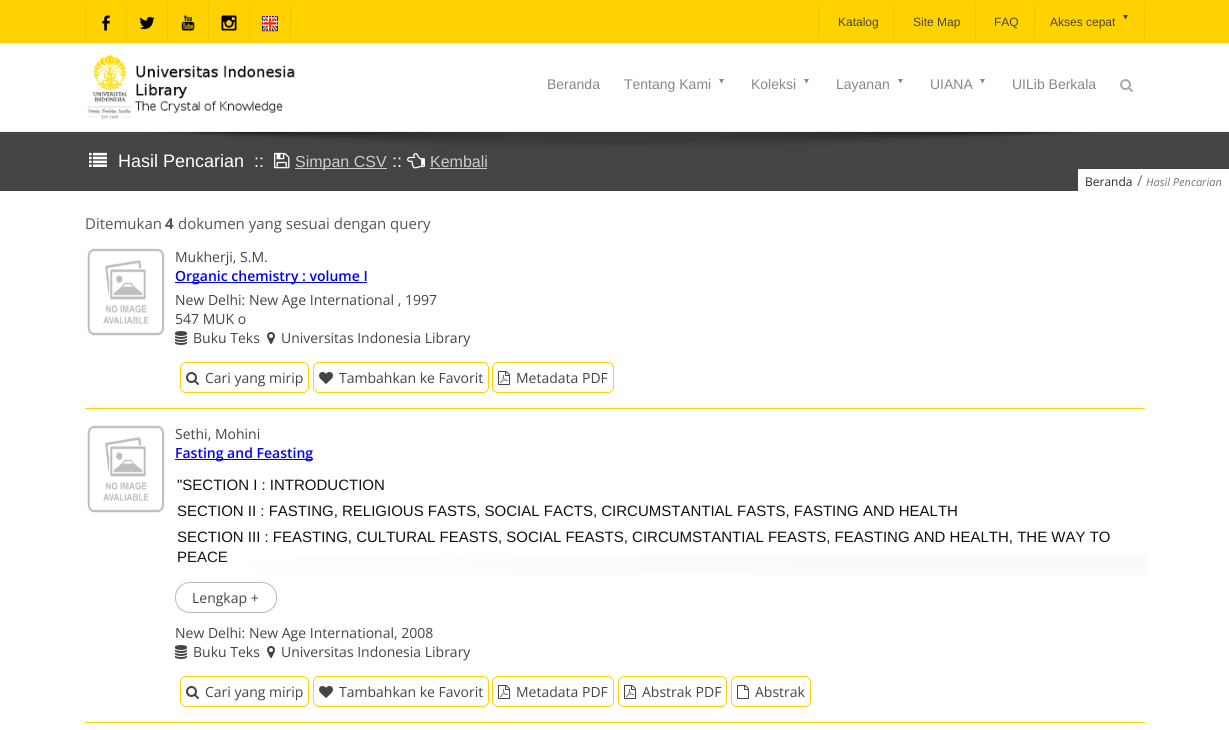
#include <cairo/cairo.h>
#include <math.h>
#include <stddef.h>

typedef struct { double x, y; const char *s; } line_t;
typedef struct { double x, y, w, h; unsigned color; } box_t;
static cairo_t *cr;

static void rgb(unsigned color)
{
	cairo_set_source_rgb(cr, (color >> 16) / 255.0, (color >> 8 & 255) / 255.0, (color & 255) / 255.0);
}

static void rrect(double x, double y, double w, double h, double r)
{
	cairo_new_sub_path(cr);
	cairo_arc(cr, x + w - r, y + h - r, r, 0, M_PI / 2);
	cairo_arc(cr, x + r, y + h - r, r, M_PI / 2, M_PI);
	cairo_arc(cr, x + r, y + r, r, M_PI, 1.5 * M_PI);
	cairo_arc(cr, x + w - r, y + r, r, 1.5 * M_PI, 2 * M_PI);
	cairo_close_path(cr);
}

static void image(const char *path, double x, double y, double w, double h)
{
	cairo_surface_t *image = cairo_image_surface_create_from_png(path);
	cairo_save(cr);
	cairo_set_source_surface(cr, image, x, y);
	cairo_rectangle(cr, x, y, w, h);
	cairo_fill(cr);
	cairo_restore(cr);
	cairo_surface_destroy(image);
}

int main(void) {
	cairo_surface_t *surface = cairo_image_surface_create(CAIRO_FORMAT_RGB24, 1229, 730);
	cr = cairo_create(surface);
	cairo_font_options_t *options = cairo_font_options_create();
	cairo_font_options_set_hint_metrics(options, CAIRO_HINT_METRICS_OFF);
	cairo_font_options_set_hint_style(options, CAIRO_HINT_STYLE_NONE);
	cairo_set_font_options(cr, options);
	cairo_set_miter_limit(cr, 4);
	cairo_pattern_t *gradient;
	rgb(0xffffff);
	cairo_paint(cr);
	{
		static const box_t items[] = {
			{0, 0, 1229, 43, 0xffd200},
			{85, 3, 1, 40, 0xf2c800},
			{126, 3, 1, 40, 0xf2c800},
		};
		for (size_t i = 0; i < sizeof items / sizeof *items; i++) {
			rgb(items[i].color);
			cairo_rectangle(cr, items[i].x, items[i].y, items[i].w, items[i].h);
			cairo_fill(cr);
		}
	}
	image("img/1.png", 102, 15, 8, 16);
	cairo_rectangle(cr, 167, 3, 1, 40);
	cairo_fill(cr);
	image("img/2.png", 139, 16, 16, 14);
	cairo_rectangle(cr, 208, 3, 1, 40);
	cairo_fill(cr);
	image("img/3.png", 181, 15, 14, 16);
	cairo_rectangle(cr, 249, 3, 1, 40);
	cairo_fill(cr);
	image("img/4.png", 221, 15, 16, 16);
	cairo_rectangle(cr, 290, 3, 1, 40);
	cairo_fill(cr);
	image("img/5.png", 262, 16, 16, 16);
	{
		static const box_t items[] = {
			{818, 3, 1, 38, 0xf2c800},
			{893, 3, 1, 38, 0xf2c800},
			{975, 3, 1, 38, 0xf2c800},
			{1144, 3, 1, 38, 0xf2c800},
			{1034, 3, 1, 38, 0xf2c800},
		};
		for (size_t i = 0; i < sizeof items / sizeof *items; i++) {
			rgb(items[i].color);
			cairo_rectangle(cr, items[i].x, items[i].y, items[i].w, items[i].h);
			cairo_fill(cr);
		}
	}
	rgb(0x444444);
	cairo_new_path(cr);
	cairo_move_to(cr, 1128, 15);
	cairo_line_to(cr, 1125.5, 19.5);
	cairo_line_to(cr, 1123, 15);
	cairo_close_path(cr);
	cairo_fill(cr);
	rgb(0xf2f2f2);
	cairo_rectangle(cr, 0, 131, 1229, 1);
	cairo_fill(cr);
	image("img/6.png", 87, 54, 208, 66);
	rgb(0x84888d);
	cairo_new_path(cr);
	cairo_move_to(cr, 724, 79);
	cairo_line_to(cr, 721.5, 83.5);
	cairo_line_to(cr, 719, 79);
	cairo_close_path(cr);
	cairo_fill(cr);
	cairo_new_path(cr);
	cairo_move_to(cr, 809, 79);
	cairo_line_to(cr, 806.5, 83.5);
	cairo_line_to(cr, 804, 79);
	cairo_close_path(cr);
	cairo_fill(cr);
	cairo_new_path(cr);
	cairo_move_to(cr, 903, 79);
	cairo_line_to(cr, 900.5, 83.5);
	cairo_line_to(cr, 898, 79);
	cairo_close_path(cr);
	cairo_fill(cr);
	cairo_new_path(cr);
	cairo_move_to(cr, 985, 79);
	cairo_line_to(cr, 982.5, 83.5);
	cairo_line_to(cr, 980, 79);
	cairo_close_path(cr);
	cairo_fill(cr);
	image("img/7.png", 1120, 79, 13, 13);
	rgb(0x444444);
	cairo_rectangle(cr, 0, 132, 1229, 59);
	cairo_fill(cr);
	image("img/8.png", 142, 132, 955, 15);
	image("img/9.png", 89, 152, 18, 15);
	image("img/10.png", 274, 152, 16, 17);
	rgb(0xcccccc);
	cairo_rectangle(cr, 295, 168, 92, 1);
	cairo_fill(cr);
	image("img/11.png", 407, 153, 18, 16);
	cairo_rectangle(cr, 430, 168, 57, 1);
	cairo_fill(cr);
	rgb(0xffffff);
	cairo_rectangle(cr, 1078, 169, 151, 22);
	cairo_fill(cr);
	image("img/12.png", 87, 248, 78, 88);
	rgb(0x0000ff);
	cairo_rectangle(cr, 175, 282, 192, 1);
	cairo_fill(cr);
	image("img/13.png", 175, 331, 12, 14);
	image("img/14.png", 267, 332, 8, 12);
	rrect(180.5, 362.5, 128, 30, 5.5);
	rgb(0xffd200);
	cairo_set_line_width(cr, 1);
	cairo_stroke(cr);
	image("img/15.png", 186, 372, 13, 13);
	rrect(313.5, 362.5, 175, 30, 5.5);
	cairo_stroke(cr);
	image("img/16.png", 319, 372, 14, 12);
	rrect(492.5, 362.5, 121, 30, 5.5);
	cairo_stroke(cr);
	image("img/17.png", 498, 371, 12, 14);
	rrect(85, 408, 1060, 1, 0.5);
	cairo_fill(cr);
	image("img/18.png", 87, 425, 78, 88);
	rgb(0x0000ff);
	cairo_rectangle(cr, 175, 459, 138, 1);
	cairo_fill(cr);
	rrect(175.5, 582.5, 101, 30, 14.5);
	rgb(0xbbbbbb);
	cairo_stroke(cr);
	image("img/13.png", 175, 645, 12, 14);
	image("img/14.png", 267, 646, 8, 12);
	rrect(180.5, 676.5, 128, 30, 5.5);
	rgb(0xffd200);
	cairo_stroke(cr);
	image("img/15.png", 186, 686, 13, 13);
	rrect(313.5, 676.5, 175, 30, 5.5);
	cairo_stroke(cr);
	image("img/16.png", 319, 686, 14, 12);
	rrect(492.5, 676.5, 121, 30, 5.5);
	cairo_stroke(cr);
	image("img/17.png", 498, 685, 12, 14);
	rrect(618.5, 676.5, 108, 30, 5.5);
	cairo_stroke(cr);
	image("img/17.png", 624, 685, 12, 14);
	rrect(731.5, 676.5, 79, 30, 5.5);
	cairo_stroke(cr);
	image("img/19.png", 737, 685, 12, 14);
	rrect(85, 722, 1060, 1, 0.5);
	cairo_fill(cr);
	cairo_select_font_face(cr, "Liberation Sans", CAIRO_FONT_SLANT_NORMAL, CAIRO_FONT_WEIGHT_NORMAL);
	cairo_set_font_size(cr, 12);
	rgb(0x444444);
	{
		static const line_t items[] = {
			{838, 26, "Katalog"},
			{913, 26, "Site Map"},
			{994, 26, "FAQ"},
			{1050, 26, "Akses cepat"},
		};
		for (size_t i = 0; i < sizeof items / sizeof *items; i++) {
			cairo_move_to(cr, items[i].x, items[i].y);
			cairo_show_text(cr, items[i].s);
		}
	}
	cairo_set_font_size(cr, 14);
	rgb(0x84888d);
	{
		static const line_t items[] = {
			{547, 89, "Beranda"},
			{624, 89, "Tentang Kami"},
			{751, 89, "Koleksi"},
			{836, 89, "Layanan"},
			{930, 89, "UIANA"},
			{1012, 89, "UILib Berkala"},
		};
		for (size_t i = 0; i < sizeof items / sizeof *items; i++) {
			cairo_move_to(cr, items[i].x, items[i].y);
			cairo_show_text(cr, items[i].s);
		}
	}
	cairo_set_font_size(cr, 18);
	rgb(0xffffff);
	cairo_move_to(cr, 118, 167);
	cairo_show_text(cr, "Hasil Pencarian  ::");
	cairo_set_font_size(cr, 16);
	rgb(0xcccccc);
	cairo_move_to(cr, 295, 167);
	cairo_show_text(cr, "Simpan CSV");
	cairo_set_font_size(cr, 18);
	rgb(0xffffff);
	cairo_move_to(cr, 392, 167);
	cairo_show_text(cr, "::");
	cairo_set_font_size(cr, 16);
	rgb(0xcccccc);
	cairo_move_to(cr, 430, 167);
	cairo_show_text(cr, "Kembali");
	cairo_select_font_face(cr, "Open Sans", CAIRO_FONT_SLANT_NORMAL, CAIRO_FONT_WEIGHT_NORMAL);
	cairo_set_font_size(cr, 12);
	rgb(0x292928);
	cairo_move_to(cr, 1085, 186);
	cairo_show_text(cr, "Beranda");
	cairo_set_font_size(cr, 15);
	rgb(0x757575);
	cairo_move_to(cr, 1137, 186);
	cairo_show_text(cr, "/");
	cairo_select_font_face(cr, "Open Sans", CAIRO_FONT_SLANT_ITALIC, CAIRO_FONT_WEIGHT_NORMAL);
	cairo_set_font_size(cr, 11);
	cairo_move_to(cr, 1146, 186);
	cairo_show_text(cr, "Hasil Pencarian");
	cairo_select_font_face(cr, "Open Sans", CAIRO_FONT_SLANT_NORMAL, CAIRO_FONT_WEIGHT_NORMAL);
	cairo_set_font_size(cr, 15);
	rgb(0x555555);
	cairo_move_to(cr, 85, 229);
	cairo_show_text(cr, "Ditemukan");
	cairo_select_font_face(cr, "Open Sans", CAIRO_FONT_SLANT_NORMAL, CAIRO_FONT_WEIGHT_BOLD);
	cairo_move_to(cr, 165, 229);
	cairo_show_text(cr, "4");
	cairo_select_font_face(cr, "Open Sans", CAIRO_FONT_SLANT_NORMAL, CAIRO_FONT_WEIGHT_NORMAL);
	cairo_move_to(cr, 178, 229);
	cairo_show_text(cr, "dokumen yang sesuai dengan query");
	cairo_set_font_size(cr, 14);
	rgb(0x444444);
	cairo_move_to(cr, 175, 262);
	cairo_show_text(cr, "Mukherji, S.M.");
	cairo_select_font_face(cr, "Open Sans SemiBold", CAIRO_FONT_SLANT_NORMAL, CAIRO_FONT_WEIGHT_NORMAL);
	rgb(0x0000ff);
	cairo_move_to(cr, 175, 281);
	cairo_show_text(cr, "Organic chemistry : volume I");
	cairo_select_font_face(cr, "Open Sans", CAIRO_FONT_SLANT_NORMAL, CAIRO_FONT_WEIGHT_NORMAL);
	rgb(0x444444);
	{
		static const line_t items[] = {
			{175, 305, "New Delhi: New Age International , 1997"},
			{175, 324, "547 MUK o"},
			{193, 343, "Buku Teks"},
			{281, 343, "Universitas Indonesia Library"},
			{205, 383, "Cari yang mirip"},
			{339, 383, "Tambahkan ke Favorit"},
			{516, 383, "Metadata PDF"},
			{175, 439, "Sethi, Mohini"},
		};
		for (size_t i = 0; i < sizeof items / sizeof *items; i++) {
			cairo_move_to(cr, items[i].x, items[i].y);
			cairo_show_text(cr, items[i].s);
		}
	}
	cairo_select_font_face(cr, "Open Sans SemiBold", CAIRO_FONT_SLANT_NORMAL, CAIRO_FONT_WEIGHT_NORMAL);
	rgb(0x0000ff);
	cairo_move_to(cr, 175, 458);
	cairo_show_text(cr, "Fasting and Feasting");
	cairo_select_font_face(cr, "Liberation Sans", CAIRO_FONT_SLANT_NORMAL, CAIRO_FONT_WEIGHT_NORMAL);
	cairo_set_font_size(cr, 15);
	rgb(0x111111);
	{
		static const line_t items[] = {
			{177, 490, "\"SECTION I : INTRODUCTION"},
			{177, 516, "SECTION II : FASTING, RELIGIOUS FASTS, SOCIAL FACTS, CIRCUMSTANTIAL FASTS, FASTING AND HEALTH"},
			{177, 542, "SECTION III : FEASTING, CULTURAL FEASTS, SOCIAL FEASTS, CIRCUMSTANTIAL FEASTS, FEASTING AND HEALTH, THE WAY TO"},
			{177, 562, "PEACE"},
		};
		for (size_t i = 0; i < sizeof items / sizeof *items; i++) {
			cairo_move_to(cr, items[i].x, items[i].y);
			cairo_show_text(cr, items[i].s);
		}
	}
	gradient = cairo_pattern_create_linear(177, 565, 1147, 565);
	cairo_pattern_add_color_stop_rgba(gradient, 0, 0.98, 0.98, 0.98, 0);
	cairo_pattern_add_color_stop_rgba(gradient, 0.65, 0.98, 0.98, 0.98, 1);
	cairo_set_source(cr, gradient);
	cairo_pattern_destroy(gradient);
	cairo_rectangle(cr, 191, 555, 956, 20);
	cairo_fill(cr);
	cairo_select_font_face(cr, "Open Sans", CAIRO_FONT_SLANT_NORMAL, CAIRO_FONT_WEIGHT_NORMAL);
	cairo_set_font_size(cr, 14);
	rgb(0x444444);
	{
		static const line_t items[] = {
			{192, 603, "Lengkap +"},
			{175, 638, "New Delhi: New Age International, 2008"},
			{193, 657, "Buku Teks"},
			{281, 657, "Universitas Indonesia Library"},
			{205, 697, "Cari yang mirip"},
			{339, 697, "Tambahkan ke Favorit"},
			{516, 697, "Metadata PDF"},
			{642, 697, "Abstrak PDF"},
			{755, 697, "Abstrak"},
		};
		for (size_t i = 0; i < sizeof items / sizeof *items; i++) {
			cairo_move_to(cr, items[i].x, items[i].y);
			cairo_show_text(cr, items[i].s);
		}
	}
	cairo_surface_write_to_png(surface, "page.png");
	cairo_font_options_destroy(options);
	cairo_destroy(cr);
	cairo_surface_destroy(surface);
	return 0;
}
